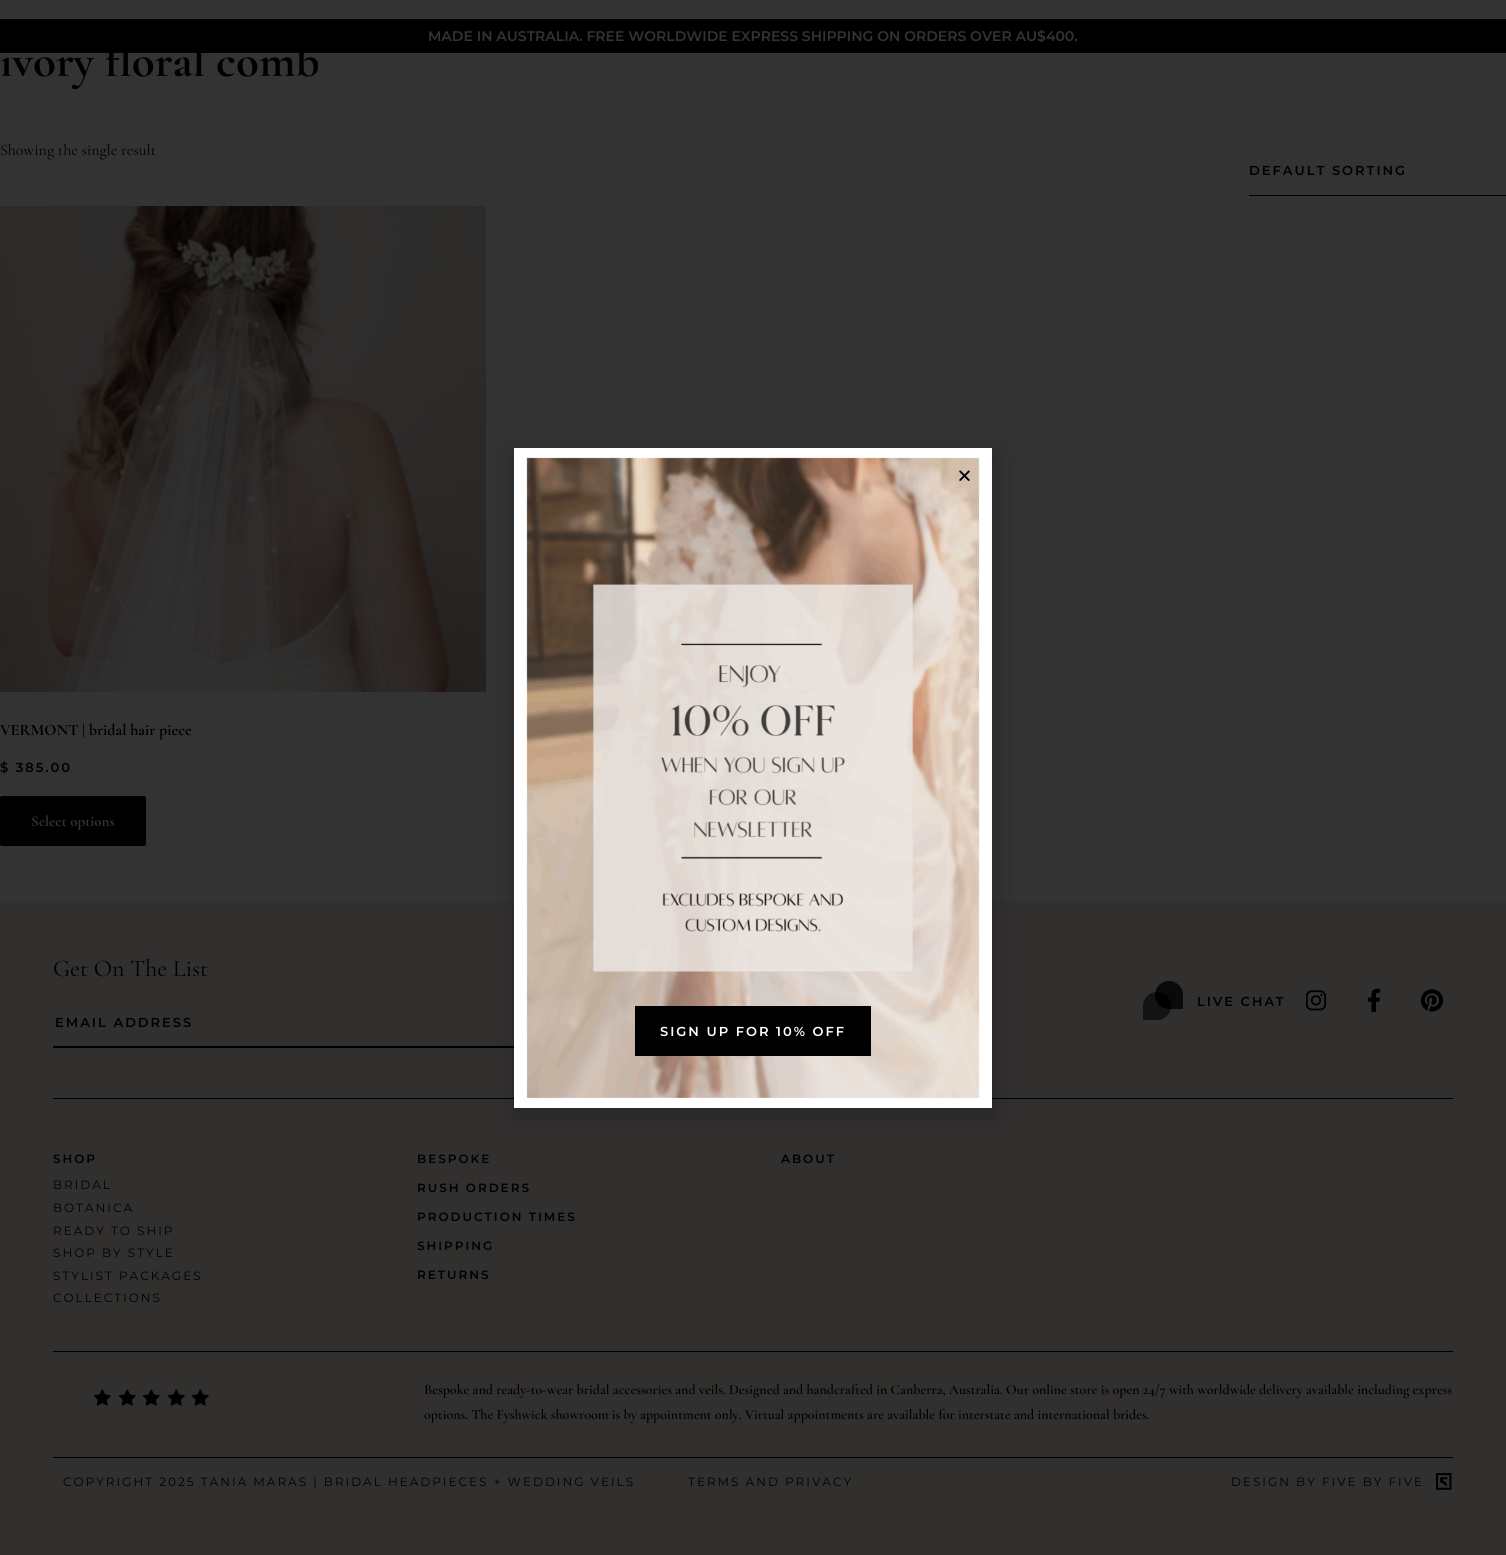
#include <cairo/cairo.h>
#include <math.h>
#include <stddef.h>

typedef struct { double x, y; const char *s; } line_t;
typedef struct { double x, y, w, h; unsigned color; } box_t;
static cairo_t *cr;

static void rgb(unsigned color)
{
	cairo_set_source_rgb(cr, (color >> 16) / 255.0, (color >> 8 & 255) / 255.0, (color & 255) / 255.0);
}

static void tracked(double x, double y, const char *s, double letter, double word)
{
	cairo_move_to(cr, x, y);
	while (*s) {
		char ch[5] = {0};
		int n = 0;
		do ch[n++] = *s++; while ((*s & 0xC0) == 0x80);
		cairo_show_text(cr, ch);
		cairo_rel_move_to(cr, letter + word * (*ch == ' '), 0);
	}
}

static void rrect(double x, double y, double w, double h, double r)
{
	cairo_new_sub_path(cr);
	cairo_arc(cr, x + w - r, y + h - r, r, 0, M_PI / 2);
	cairo_arc(cr, x + r, y + h - r, r, M_PI / 2, M_PI);
	cairo_arc(cr, x + r, y + r, r, M_PI, 1.5 * M_PI);
	cairo_arc(cr, x + w - r, y + r, r, 1.5 * M_PI, 2 * M_PI);
	cairo_close_path(cr);
}

static void soft_shadow(double x, double y, double w, double h, double r, double blur, double alpha)
{
	cairo_push_group_with_content(cr, CAIRO_CONTENT_ALPHA);
	cairo_set_operator(cr, CAIRO_OPERATOR_SOURCE);
	for (int i = 15; i >= -15 && fmin(w, h) + blur * i / 3 > 0; i -= 2) {
		double e = blur * i / 6;
		cairo_set_source_rgba(cr, 0, 0, 0, alpha * erfc((i - 1) / 8.5) / 2);
		rrect(x - e, y - e, w + 2 * e, h + 2 * e, fmax(0, fmin(r + e + blur * .6, fmin(w, h) / 2 + e)));
		cairo_fill(cr);
	}
	cairo_pattern_t *soft = cairo_pop_group(cr);
	cairo_mask(cr, soft);
	cairo_pattern_destroy(soft);
}

static void image(const char *path, double x, double y, double w, double h)
{
	cairo_surface_t *image = cairo_image_surface_create_from_png(path);
	cairo_save(cr);
	cairo_set_source_surface(cr, image, x, y);
	cairo_rectangle(cr, x, y, w, h);
	cairo_fill(cr);
	cairo_restore(cr);
	cairo_surface_destroy(image);
}

int main(void) {
	cairo_surface_t *surface = cairo_image_surface_create(CAIRO_FORMAT_RGB24, 1506, 1555);
	cr = cairo_create(surface);
	cairo_font_options_t *options = cairo_font_options_create();
	cairo_font_options_set_hint_metrics(options, CAIRO_HINT_METRICS_OFF);
	cairo_font_options_set_hint_style(options, CAIRO_HINT_STYLE_NONE);
	cairo_set_font_options(cr, options);
	cairo_set_miter_limit(cr, 4);
	rgb(0x333333);
	cairo_paint(cr);
	rgb(0x000000);
	cairo_rectangle(cr, 0, 19, 1506, 34);
	cairo_fill(cr);
	cairo_rectangle(cr, 1249, 195, 257, 1);
	cairo_fill(cr);
	image("img/1.png", 0, 206, 486, 486);
	rrect(0.5, 796.5, 145, 49, 1.5);
	cairo_fill_preserve(cr);
	cairo_set_line_width(cr, 1);
	cairo_stroke(cr);
	{
		static const box_t items[] = {
			{0, 902, 1506, 653, 0x32302f},
			{53, 1098, 1400, 1, 0x000000},
			{53, 1046, 462, 2, 0x000000},
		};
		for (size_t i = 0; i < sizeof items / sizeof *items; i++) {
			rgb(items[i].color);
			cairo_rectangle(cr, items[i].x, items[i].y, items[i].w, items[i].h);
			cairo_fill(cr);
		}
	}
	image("img/2.png", 1143, 981, 141, 39);
	image("img/3.png", 1305, 990, 22, 21);
	image("img/4.png", 1367, 988, 14, 24);
	image("img/5.png", 1420, 989, 24, 23);
	cairo_rectangle(cr, 53, 1351, 1400, 1);
	cairo_fill(cr);
	cairo_rectangle(cr, 53, 1457, 1400, 1);
	cairo_fill(cr);
	image("img/6.png", 93, 1389, 18, 17);
	image("img/6.png", 118, 1389, 18, 17);
	image("img/6.png", 142, 1389, 18, 17);
	image("img/6.png", 167, 1389, 18, 17);
	image("img/6.png", 191, 1389, 18, 17);
	image("img/7.png", 1436, 1473, 16, 17);
	rgb(0x000000);
	soft_shadow(513, 453, 484, 666, 0, 11.5, 0.2);
	rgb(0xffffff);
	cairo_rectangle(cr, 514, 448, 478, 660);
	cairo_fill(cr);
	image("img/9.png", 526, 457, 454, 641);
	image("img/8.png", 959, 470, 11, 11);
	rgb(0x000000);
	cairo_rectangle(cr, 635, 1006, 236, 50);
	cairo_fill(cr);
	cairo_select_font_face(cr, "Montserrat SemiBold", CAIRO_FONT_SLANT_NORMAL, CAIRO_FONT_WEIGHT_NORMAL);
	cairo_set_font_size(cr, 14);
	rgb(0x333333);
	cairo_move_to(cr, 428, 41);
	cairo_show_text(cr, "MADE IN AUSTRALIA. FREE WORLDWIDE EXPRESS SHIPPING ON ORDERS OVER AU$400.");
	cairo_select_font_face(cr, "Cormorant Garamond", CAIRO_FONT_SLANT_NORMAL, CAIRO_FONT_WEIGHT_BOLD);
	cairo_set_font_size(cr, 47);
	rgb(0x000000);
	cairo_move_to(cr, 0, 76);
	cairo_show_text(cr, "ivory floral comb");
	cairo_select_font_face(cr, "Cormorant Garamond", CAIRO_FONT_SLANT_NORMAL, CAIRO_FONT_WEIGHT_NORMAL);
	cairo_set_font_size(cr, 16);
	cairo_move_to(cr, 0, 155);
	cairo_show_text(cr, "Showing the single result");
	cairo_select_font_face(cr, "Montserrat SemiBold", CAIRO_FONT_SLANT_NORMAL, CAIRO_FONT_WEIGHT_NORMAL);
	cairo_set_font_size(cr, 13);
	tracked(1249, 175, "DEFAULT SORTING", 2, 0);
	cairo_select_font_face(cr, "Cormorant Garamond", CAIRO_FONT_SLANT_NORMAL, CAIRO_FONT_WEIGHT_BOLD);
	cairo_set_font_size(cr, 16);
	cairo_move_to(cr, 0, 735);
	cairo_show_text(cr, "VERMONT | bridal hair piece");
	cairo_select_font_face(cr, "Montserrat SemiBold", CAIRO_FONT_SLANT_NORMAL, CAIRO_FONT_WEIGHT_NORMAL);
	cairo_set_font_size(cr, 13);
	tracked(0, 772, "$ 385.00", 2, 0);
	cairo_select_font_face(cr, "Cormorant Garamond", CAIRO_FONT_SLANT_NORMAL, CAIRO_FONT_WEIGHT_BOLD);
	cairo_set_font_size(cr, 15);
	rgb(0x333333);
	cairo_move_to(cr, 31, 826);
	cairo_show_text(cr, "Select options");
	cairo_select_font_face(cr, "Cormorant Garamond", CAIRO_FONT_SLANT_NORMAL, CAIRO_FONT_WEIGHT_NORMAL);
	cairo_set_font_size(cr, 24);
	rgb(0x000000);
	cairo_move_to(cr, 53, 976);
	cairo_show_text(cr, "Get On The List");
	cairo_select_font_face(cr, "Montserrat SemiBold", CAIRO_FONT_SLANT_NORMAL, CAIRO_FONT_WEIGHT_NORMAL);
	cairo_set_font_size(cr, 13);
	tracked(55, 1027, "EMAIL ADDRESS", 2, 0);
	cairo_set_font_size(cr, 12);
	tracked(53, 1163, "SHOP", 2, 0);
	cairo_select_font_face(cr, "Montserrat", CAIRO_FONT_SLANT_NORMAL, CAIRO_FONT_WEIGHT_NORMAL);
	{
		static const line_t items[] = {
			{53, 1189, "BRIDAL"},
			{53, 1212, "BOTANICA"},
			{53, 1235, "READY TO SHIP"},
			{53, 1257, "SHOP BY STYLE"},
			{53, 1280, "STYLIST PACKAGES"},
			{53, 1302, "COLLECTIONS"},
		};
		for (size_t i = 0; i < sizeof items / sizeof *items; i++) {
			tracked(items[i].x, items[i].y, items[i].s, 2, 0);
		}
	}
	cairo_select_font_face(cr, "Montserrat SemiBold", CAIRO_FONT_SLANT_NORMAL, CAIRO_FONT_WEIGHT_NORMAL);
	{
		static const line_t items[] = {
			{417, 1163, "BESPOKE"},
			{417, 1192, "RUSH ORDERS"},
			{417, 1221, "PRODUCTION TIMES"},
			{417, 1250, "SHIPPING"},
			{417, 1279, "RETURNS"},
			{781, 1163, "ABOUT"},
		};
		for (size_t i = 0; i < sizeof items / sizeof *items; i++) {
			tracked(items[i].x, items[i].y, items[i].s, 2, 0);
		}
	}
	cairo_select_font_face(cr, "Cormorant Garamond SemiBold", CAIRO_FONT_SLANT_NORMAL, CAIRO_FONT_WEIGHT_NORMAL);
	cairo_set_font_size(cr, 14);
	cairo_move_to(cr, 424, 1394);
	cairo_show_text(cr, "Bespoke and ready-to-wear bridal accessories and veils. Designed and handcrafted in Canberra, Australia. Our online store is open 24/7 with worldwide delivery available including express");
	cairo_move_to(cr, 424, 1419);
	cairo_show_text(cr, "options. The Fyshwick showroom is by appointment only. Virtual appointments are available for interstate and international brides.");
	cairo_select_font_face(cr, "Montserrat", CAIRO_FONT_SLANT_NORMAL, CAIRO_FONT_WEIGHT_NORMAL);
	cairo_set_font_size(cr, 12);
	{
		static const line_t items[] = {
			{63, 1486, "COPYRIGHT 2025 TANIA MARAS | BRIDAL HEADPIECES + WEDDING VEILS"},
			{688, 1486, "TERMS AND PRIVACY"},
			{1231, 1486, "DESIGN BY FIVE BY FIVE"},
		};
		for (size_t i = 0; i < sizeof items / sizeof *items; i++) {
			tracked(items[i].x, items[i].y, items[i].s, 2, 0);
		}
	}
	cairo_select_font_face(cr, "Montserrat SemiBold", CAIRO_FONT_SLANT_NORMAL, CAIRO_FONT_WEIGHT_NORMAL);
	cairo_set_font_size(cr, 13);
	rgb(0xffffff);
	tracked(660, 1036, "SIGN UP FOR 10% OFF", 2, 0);
	cairo_surface_write_to_png(surface, "page.png");
	cairo_font_options_destroy(options);
	cairo_destroy(cr);
	cairo_surface_destroy(surface);
	return 0;
}
